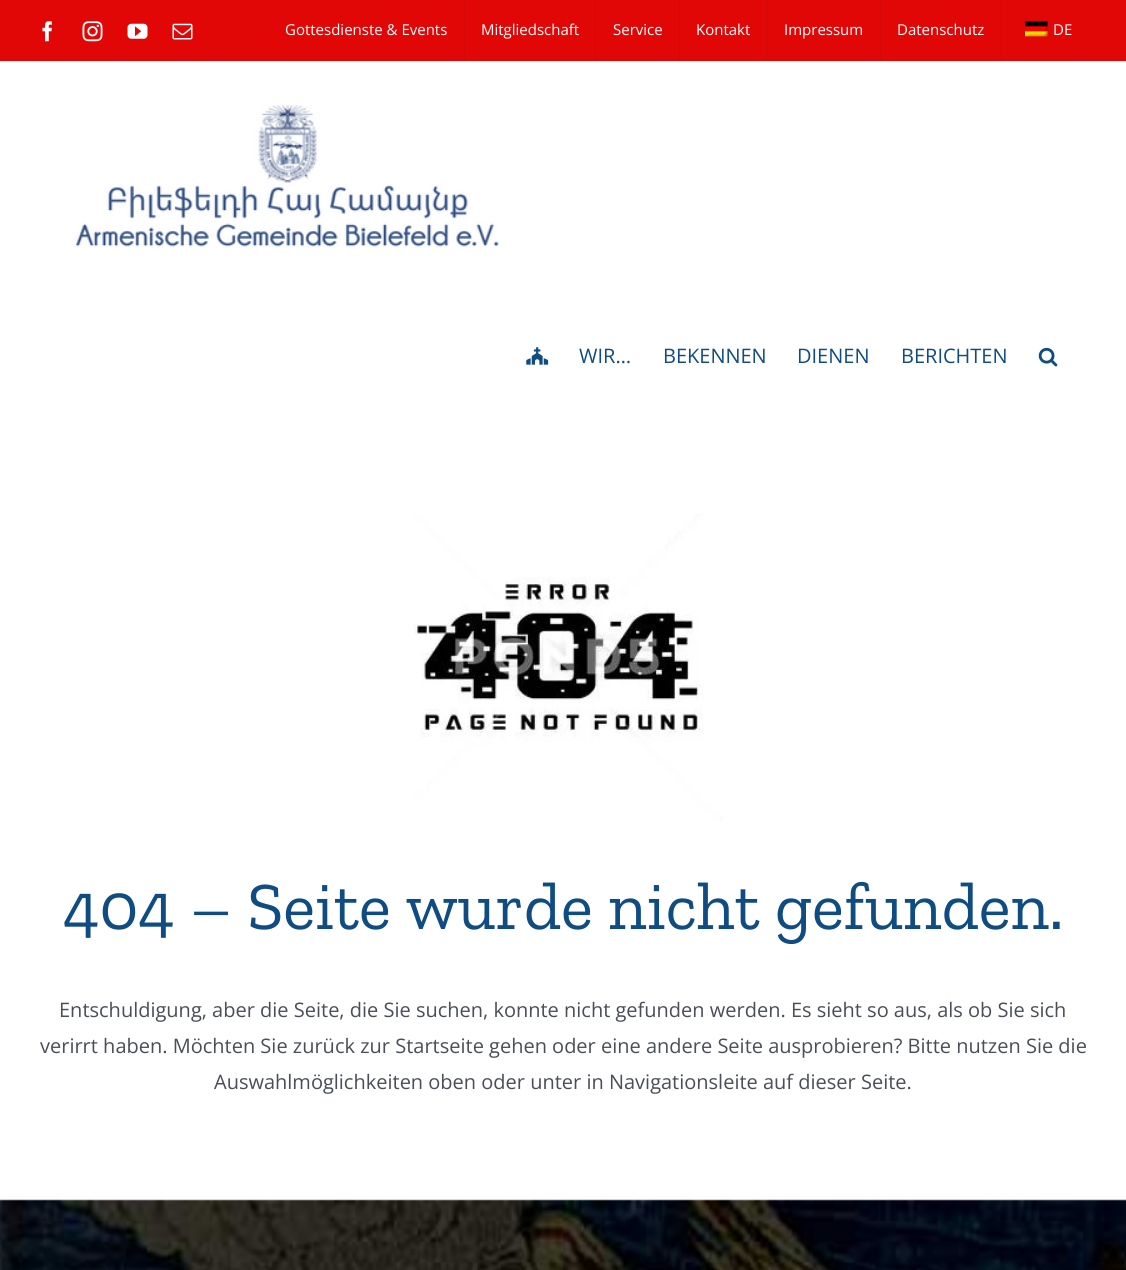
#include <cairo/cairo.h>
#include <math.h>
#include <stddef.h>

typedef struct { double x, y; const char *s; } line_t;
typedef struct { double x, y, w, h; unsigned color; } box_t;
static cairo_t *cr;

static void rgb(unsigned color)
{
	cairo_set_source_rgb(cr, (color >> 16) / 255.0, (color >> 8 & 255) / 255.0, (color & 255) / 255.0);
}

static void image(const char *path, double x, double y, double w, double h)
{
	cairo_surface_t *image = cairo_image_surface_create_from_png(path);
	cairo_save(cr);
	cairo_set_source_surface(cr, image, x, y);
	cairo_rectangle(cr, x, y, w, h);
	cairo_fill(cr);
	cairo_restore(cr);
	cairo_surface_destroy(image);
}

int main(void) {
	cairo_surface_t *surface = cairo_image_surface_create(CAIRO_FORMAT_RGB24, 1126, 1270);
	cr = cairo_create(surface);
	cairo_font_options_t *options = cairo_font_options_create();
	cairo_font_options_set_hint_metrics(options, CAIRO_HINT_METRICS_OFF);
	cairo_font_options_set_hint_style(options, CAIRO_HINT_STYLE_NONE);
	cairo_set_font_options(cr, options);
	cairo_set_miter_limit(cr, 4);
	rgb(0xffffff);
	cairo_paint(cr);
	rgb(0xe10707);
	cairo_rectangle(cr, 0, 0, 1126, 61);
	cairo_fill(cr);
	image("img/1.png", 42, 21, 10, 21);
	image("img/2.png", 82, 21, 21, 21);
	image("img/3.png", 127, 23, 21, 16);
	image("img/4.png", 172, 23, 21, 17);
	{
		static const box_t items[] = {
			{464, 0, 1, 60, 0xd40707},
			{595, 0, 1, 60, 0xd40707},
			{679, 0, 1, 60, 0xd40707},
			{766, 0, 1, 60, 0xd40707},
			{880, 0, 1, 60, 0xd40707},
			{1001, 0, 1, 60, 0xd40707},
		};
		for (size_t i = 0; i < sizeof items / sizeof *items; i++) {
			rgb(items[i].color);
			cairo_rectangle(cr, items[i].x, items[i].y, items[i].w, items[i].h);
			cairo_fill(cr);
		}
	}
	image("img/5.png", 1025, 21, 23, 16);
	image("img/6.png", 75, 105, 424, 142);
	image("img/7.png", 526, 347, 23, 18);
	image("img/8.png", 1038, 347, 20, 20);
	image("img/9.png", 413, 514, 309, 307);
	image("img/10.png", 0, 1199, 1126, 71);
	cairo_select_font_face(cr, "Open Sans", CAIRO_FONT_SLANT_NORMAL, CAIRO_FONT_WEIGHT_NORMAL);
	cairo_set_font_size(cr, 15);
	rgb(0xffffff);
	{
		static const line_t items[] = {
			{285, 35, "Gottesdienste & Events"},
			{481, 35, "Mitgliedschaft"},
			{613, 35, "Service"},
			{696, 35, "Kontakt"},
			{784, 35, "Impressum"},
			{897, 35, "Datenschutz"},
			{1053, 35, "DE"},
		};
		for (size_t i = 0; i < sizeof items / sizeof *items; i++) {
			cairo_move_to(cr, items[i].x, items[i].y);
			cairo_show_text(cr, items[i].s);
		}
	}
	cairo_set_font_size(cr, 20);
	rgb(0x0f4c81);
	{
		static const line_t items[] = {
			{579, 363, "WIR…"},
			{663, 363, "BEKENNEN"},
			{797, 363, "DIENEN"},
			{901, 363, "BERICHTEN"},
		};
		for (size_t i = 0; i < sizeof items / sizeof *items; i++) {
			cairo_move_to(cr, items[i].x, items[i].y);
			cairo_show_text(cr, items[i].s);
		}
	}
	cairo_select_font_face(cr, "Zilla Slab", CAIRO_FONT_SLANT_NORMAL, CAIRO_FONT_WEIGHT_NORMAL);
	cairo_set_font_size(cr, 67.5);
	cairo_move_to(cr, 63, 929);
	cairo_show_text(cr, "404 – Seite wurde nicht gefunden.");
	cairo_select_font_face(cr, "Open Sans", CAIRO_FONT_SLANT_NORMAL, CAIRO_FONT_WEIGHT_NORMAL);
	cairo_set_font_size(cr, 20);
	rgb(0x4a4e57);
	{
		static const line_t items[] = {
			{59, 1017, "Entschuldigung, aber die Seite, die Sie suchen, konnte nicht gefunden werden. Es sieht so aus, als ob Sie sich"},
			{40, 1053, "verirrt haben. Möchten Sie zurück zur Startseite gehen oder eine andere Seite ausprobieren? Bitte nutzen Sie die"},
			{214, 1089, "Auswahlmöglichkeiten oben oder unter in Navigationsleite auf dieser Seite."},
		};
		for (size_t i = 0; i < sizeof items / sizeof *items; i++) {
			cairo_move_to(cr, items[i].x, items[i].y);
			cairo_show_text(cr, items[i].s);
		}
	}
	cairo_surface_write_to_png(surface, "page.png");
	cairo_font_options_destroy(options);
	cairo_destroy(cr);
	cairo_surface_destroy(surface);
	return 0;
}
